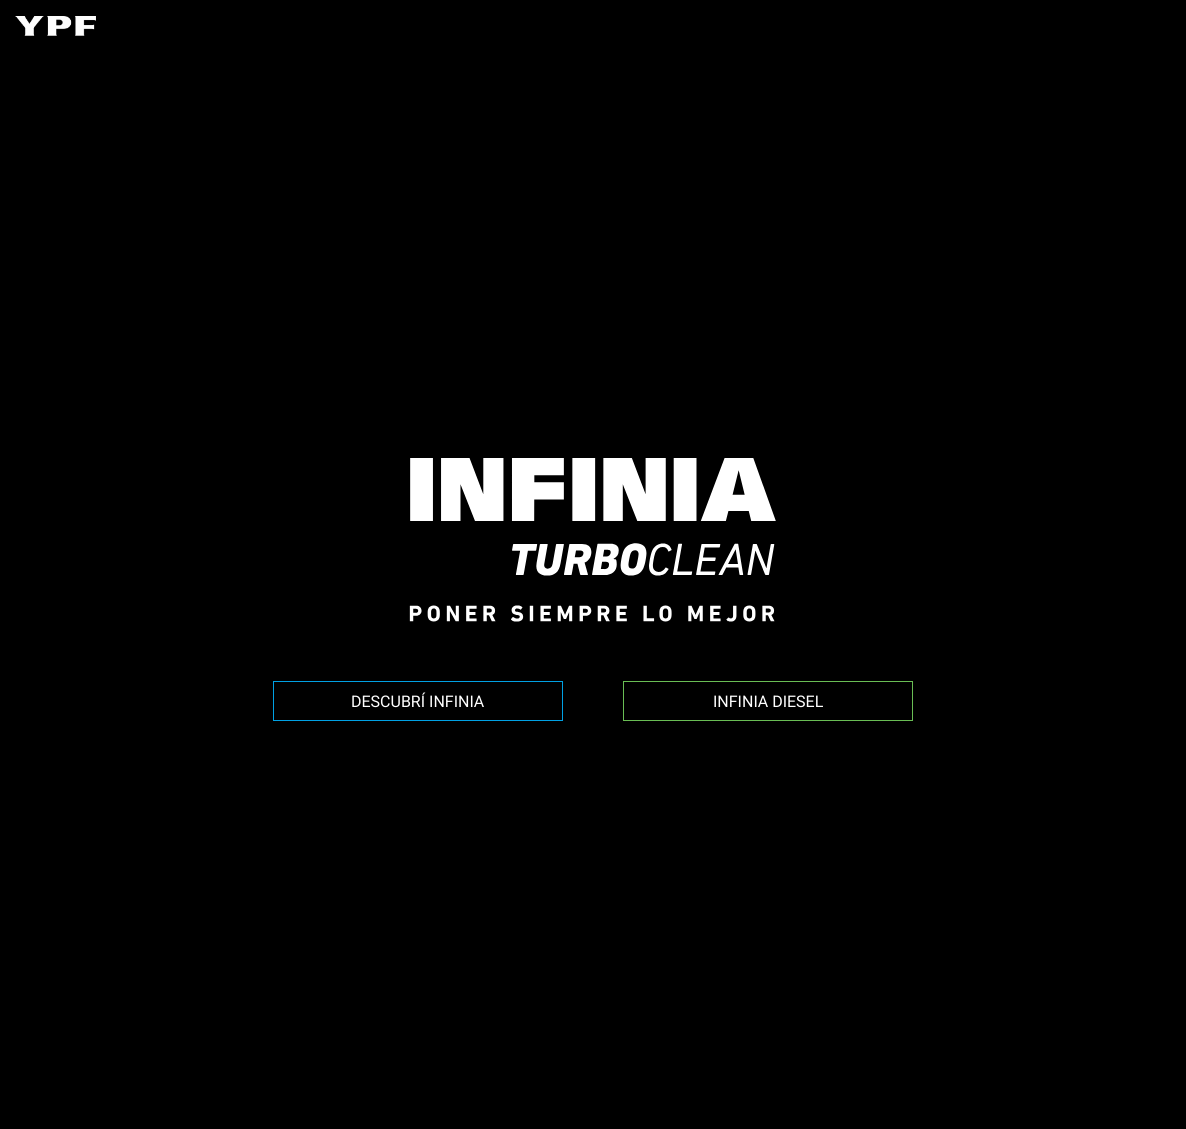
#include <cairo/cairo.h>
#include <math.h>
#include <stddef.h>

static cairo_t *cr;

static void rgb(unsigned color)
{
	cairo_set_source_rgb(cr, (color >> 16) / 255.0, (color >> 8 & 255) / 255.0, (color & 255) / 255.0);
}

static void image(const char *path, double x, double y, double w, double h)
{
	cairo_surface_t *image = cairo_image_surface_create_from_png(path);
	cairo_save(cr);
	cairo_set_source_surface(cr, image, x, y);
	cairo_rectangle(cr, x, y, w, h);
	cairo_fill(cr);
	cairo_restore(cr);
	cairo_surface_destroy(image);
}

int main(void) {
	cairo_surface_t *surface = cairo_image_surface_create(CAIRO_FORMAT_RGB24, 1186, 1129);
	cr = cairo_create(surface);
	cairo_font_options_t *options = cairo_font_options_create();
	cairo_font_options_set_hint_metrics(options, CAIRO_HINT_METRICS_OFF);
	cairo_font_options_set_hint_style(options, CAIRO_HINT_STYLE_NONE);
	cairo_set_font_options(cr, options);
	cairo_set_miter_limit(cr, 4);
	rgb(0x000000);
	cairo_paint(cr);
	image("img/1.png", 15, 16, 81, 20);
	image("img/2.png", 409, 458, 367, 164);
	cairo_rectangle(cr, 273.5, 681.5, 289, 39);
	rgb(0x00a1e3);
	cairo_set_line_width(cr, 1);
	cairo_stroke(cr);
	cairo_rectangle(cr, 623.5, 681.5, 289, 39);
	rgb(0x69bd54);
	cairo_stroke(cr);
	cairo_select_font_face(cr, "Roboto", CAIRO_FONT_SLANT_NORMAL, CAIRO_FONT_WEIGHT_NORMAL);
	cairo_set_font_size(cr, 16);
	rgb(0xffffff);
	cairo_move_to(cr, 351, 707);
	cairo_show_text(cr, "DESCUBRÍ INFINIA");
	cairo_move_to(cr, 713, 707);
	cairo_show_text(cr, "INFINIA DIESEL");
	cairo_surface_write_to_png(surface, "page.png");
	cairo_font_options_destroy(options);
	cairo_destroy(cr);
	cairo_surface_destroy(surface);
	return 0;
}
